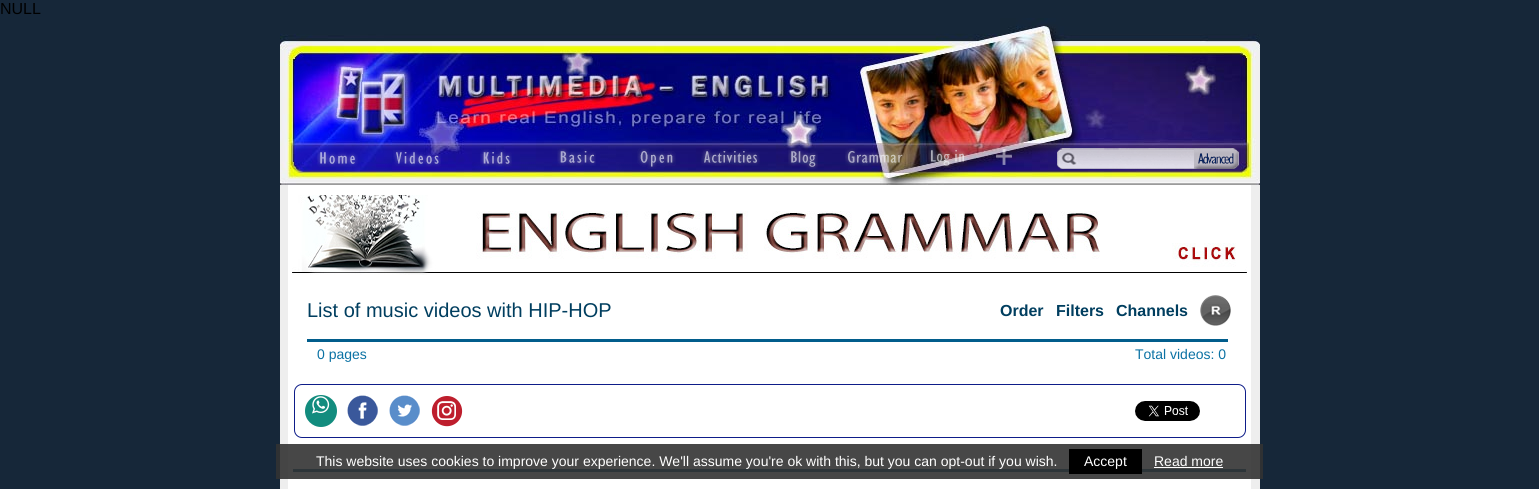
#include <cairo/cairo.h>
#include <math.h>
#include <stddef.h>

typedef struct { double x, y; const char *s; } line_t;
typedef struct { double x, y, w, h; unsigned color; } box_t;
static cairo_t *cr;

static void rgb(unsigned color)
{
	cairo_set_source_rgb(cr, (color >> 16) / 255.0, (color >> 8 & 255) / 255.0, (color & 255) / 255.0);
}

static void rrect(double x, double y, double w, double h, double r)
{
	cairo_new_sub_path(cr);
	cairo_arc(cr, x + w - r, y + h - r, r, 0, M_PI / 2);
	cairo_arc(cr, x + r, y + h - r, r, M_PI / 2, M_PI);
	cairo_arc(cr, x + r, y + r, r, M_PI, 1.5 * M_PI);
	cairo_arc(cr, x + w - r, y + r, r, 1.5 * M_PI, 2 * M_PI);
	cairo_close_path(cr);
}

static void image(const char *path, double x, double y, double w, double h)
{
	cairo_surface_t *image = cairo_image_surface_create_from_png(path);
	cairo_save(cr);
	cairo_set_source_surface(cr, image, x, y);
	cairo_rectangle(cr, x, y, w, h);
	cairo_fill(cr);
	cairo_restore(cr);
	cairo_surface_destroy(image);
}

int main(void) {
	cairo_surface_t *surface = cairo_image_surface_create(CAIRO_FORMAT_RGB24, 1539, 489);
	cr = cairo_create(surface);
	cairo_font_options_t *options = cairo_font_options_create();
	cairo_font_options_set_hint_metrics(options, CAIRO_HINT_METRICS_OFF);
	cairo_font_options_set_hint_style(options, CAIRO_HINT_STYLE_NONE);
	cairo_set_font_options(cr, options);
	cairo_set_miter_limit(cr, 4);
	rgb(0x162739);
	cairo_paint(cr);
	{
		static const box_t items[] = {
			{276, 444, 987, 35, 0x2f3133},
			{280, 185, 980, 304, 0xeeeeee},
			{280, 444, 980, 35, 0x454545},
		};
		for (size_t i = 0; i < sizeof items / sizeof *items; i++) {
			rgb(items[i].color);
			cairo_rectangle(cr, items[i].x, items[i].y, items[i].w, items[i].h);
			cairo_fill(cr);
		}
	}
	image("img/1.png", 280, 18, 980, 167);
	image("img/2.png", 317, 150, 41, 17);
	image("img/3.png", 393, 150, 48, 17);
	image("img/4.png", 480, 149, 32, 18);
	image("img/5.png", 557, 148, 39, 18);
	image("img/6.png", 637, 148, 39, 21);
	image("img/7.png", 701, 149, 59, 17);
	image("img/8.png", 788, 148, 30, 22);
	image("img/9.png", 845, 148, 59, 18);
	image("img/10.png", 928, 148, 39, 20);
	image("img/11.png", 996, 149, 16, 16);
	image("img/12.png", 1057, 148, 182, 21);
	{
		static const box_t items[] = {
			{288, 185, 963, 304, 0xffffff},
			{288, 444, 963, 35, 0x474747},
			{293, 469, 953, 3, 0x2d3539},
		};
		for (size_t i = 0; i < sizeof items / sizeof *items; i++) {
			rgb(items[i].color);
			cairo_rectangle(cr, items[i].x, items[i].y, items[i].w, items[i].h);
			cairo_fill(cr);
		}
	}
	image("img/13.png", 292, 195, 955, 80);
	image("img/14.png", 1200, 295, 31, 31);
	rgb(0x015d8c);
	cairo_rectangle(cr, 307, 339, 921, 3);
	cairo_fill(cr);
	rrect(294.5, 384.5, 951, 53, 7.5);
	rgb(0x0e1d89);
	cairo_set_line_width(cr, 1);
	cairo_stroke(cr);
	rgb(0x128c7e);
	cairo_arc(cr, 321, 411, 16, 0, 2 * M_PI);
	cairo_fill(cr);
	image("img/15.png", 312, 396, 18, 18);
	image("img/16.png", 347, 395, 31, 31);
	image("img/17.png", 389, 395, 31, 31);
	image("img/18.png", 431, 396, 32, 31);
	image("img/19.png", 1135, 401, 65, 20);
	rgb(0x000000);
	cairo_rectangle(cr, 1069, 449, 73, 25);
	cairo_fill(cr);
	rgb(0xffffff);
	cairo_rectangle(cr, 1154, 467, 69, 1);
	cairo_fill(cr);
	cairo_select_font_face(cr, "Liberation Sans", CAIRO_FONT_SLANT_NORMAL, CAIRO_FONT_WEIGHT_NORMAL);
	cairo_set_font_size(cr, 16);
	rgb(0x000000);
	cairo_move_to(cr, 0, 14);
	cairo_show_text(cr, "NULL");
	cairo_set_font_size(cr, 20);
	rgb(0x003e5f);
	cairo_move_to(cr, 307, 317);
	cairo_show_text(cr, "List of music videos with HIP-HOP");
	cairo_select_font_face(cr, "Liberation Sans", CAIRO_FONT_SLANT_NORMAL, CAIRO_FONT_WEIGHT_BOLD);
	cairo_set_font_size(cr, 16);
	{
		static const line_t items[] = {
			{1000, 316, "Order"},
			{1056, 316, "Filters"},
			{1116, 316, "Channels"},
		};
		for (size_t i = 0; i < sizeof items / sizeof *items; i++) {
			cairo_move_to(cr, items[i].x, items[i].y);
			cairo_show_text(cr, items[i].s);
		}
	}
	cairo_select_font_face(cr, "Liberation Sans", CAIRO_FONT_SLANT_NORMAL, CAIRO_FONT_WEIGHT_NORMAL);
	cairo_set_font_size(cr, 14);
	rgb(0x0b72a4);
	cairo_move_to(cr, 317, 359);
	cairo_show_text(cr, "0 pages");
	cairo_move_to(cr, 1135, 359);
	cairo_show_text(cr, "Total videos: 0");
	rgb(0xffffff);
	{
		static const line_t items[] = {
			{316, 466, "This website uses cookies to improve your experience. We'll assume you're ok with this, but you can opt-out if you wish."},
			{1084, 466, "Accept"},
			{1154, 466, "Read more"},
		};
		for (size_t i = 0; i < sizeof items / sizeof *items; i++) {
			cairo_move_to(cr, items[i].x, items[i].y);
			cairo_show_text(cr, items[i].s);
		}
	}
	cairo_surface_write_to_png(surface, "page.png");
	cairo_font_options_destroy(options);
	cairo_destroy(cr);
	cairo_surface_destroy(surface);
	return 0;
}
